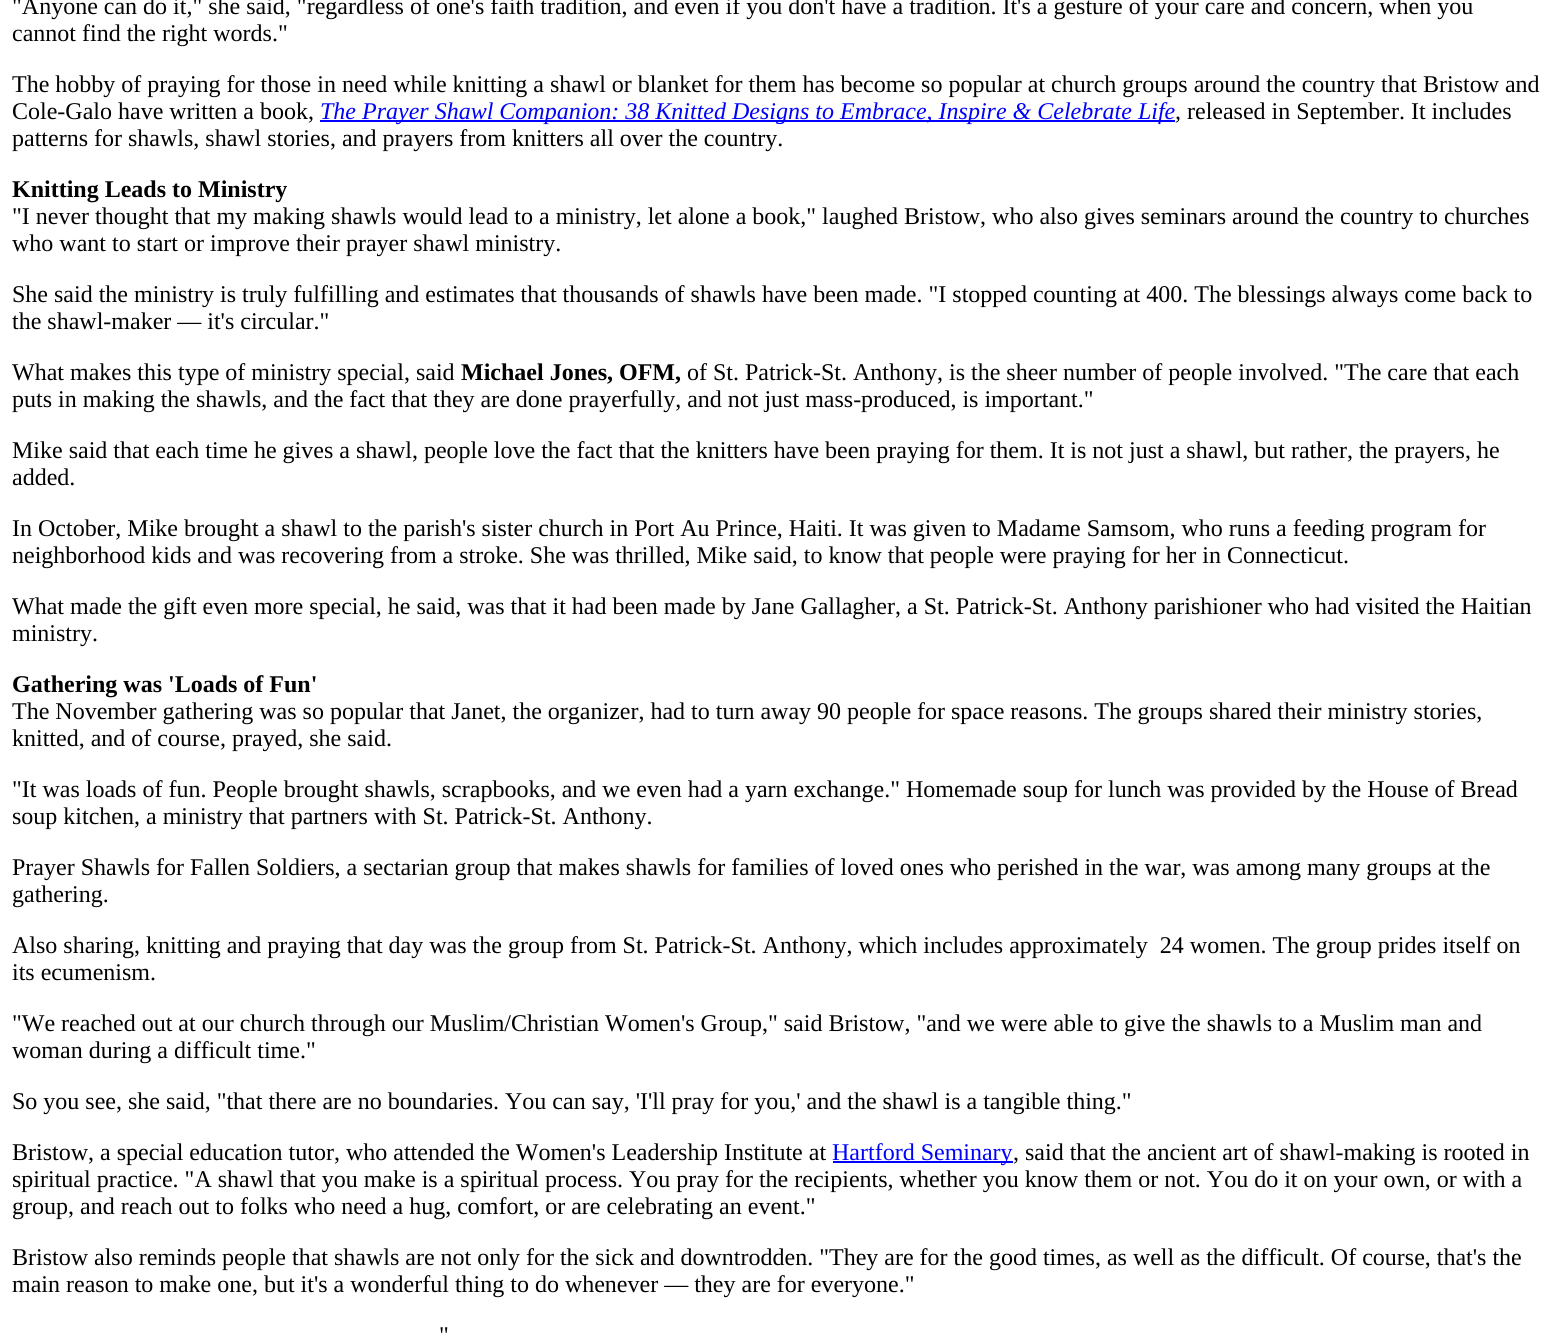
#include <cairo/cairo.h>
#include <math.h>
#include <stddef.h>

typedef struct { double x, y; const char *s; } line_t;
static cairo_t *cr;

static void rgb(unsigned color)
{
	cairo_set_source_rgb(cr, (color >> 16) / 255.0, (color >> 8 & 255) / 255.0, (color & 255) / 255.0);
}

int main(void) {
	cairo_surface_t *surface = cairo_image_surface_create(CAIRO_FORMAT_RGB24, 1552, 1336);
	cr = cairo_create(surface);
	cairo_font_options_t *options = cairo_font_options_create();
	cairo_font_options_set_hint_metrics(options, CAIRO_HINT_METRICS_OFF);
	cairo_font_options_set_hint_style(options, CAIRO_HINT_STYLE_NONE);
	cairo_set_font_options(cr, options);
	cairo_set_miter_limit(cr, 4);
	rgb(0xffffff);
	cairo_paint(cr);
	rgb(0x0000ff);
	cairo_rectangle(cr, 320, 120, 855, 2);
	cairo_fill(cr);
	cairo_rectangle(cr, 833, 1161, 180, 2);
	cairo_fill(cr);
	cairo_select_font_face(cr, "Liberation Serif", CAIRO_FONT_SLANT_NORMAL, CAIRO_FONT_WEIGHT_NORMAL);
	cairo_set_font_size(cr, 24);
	rgb(0x000000);
	{
		static const line_t items[] = {
			{12, 14, "\"Anyone can do it,\" she said, \"regardless of one's faith tradition, and even if you don't have a tradition. It's a gesture of your care and concern, when you"},
			{12, 41, "cannot find the right words.\""},
			{12, 92, "The hobby of praying for those in need while knitting a shawl or blanket for them has become so popular at church groups around the country that Bristow and"},
			{12, 119, "Cole-Galo have written a book,"},
		};
		for (size_t i = 0; i < sizeof items / sizeof *items; i++) {
			cairo_move_to(cr, items[i].x, items[i].y);
			cairo_show_text(cr, items[i].s);
		}
	}
	cairo_select_font_face(cr, "Liberation Serif", CAIRO_FONT_SLANT_ITALIC, CAIRO_FONT_WEIGHT_NORMAL);
	rgb(0x0000ff);
	cairo_move_to(cr, 320, 119);
	cairo_show_text(cr, "The Prayer Shawl Companion: 38 Knitted Designs to Embrace, Inspire & Celebrate Life");
	rgb(0x000000);
	cairo_move_to(cr, 1175, 119);
	cairo_show_text(cr, ",");
	cairo_select_font_face(cr, "Liberation Serif", CAIRO_FONT_SLANT_NORMAL, CAIRO_FONT_WEIGHT_NORMAL);
	cairo_move_to(cr, 1187, 119);
	cairo_show_text(cr, "released in September. It includes");
	cairo_move_to(cr, 12, 146);
	cairo_show_text(cr, "patterns for shawls, shawl stories, and prayers from knitters all over the country.");
	cairo_select_font_face(cr, "Liberation Serif", CAIRO_FONT_SLANT_NORMAL, CAIRO_FONT_WEIGHT_BOLD);
	cairo_move_to(cr, 12, 197);
	cairo_show_text(cr, "Knitting Leads to Ministry");
	cairo_select_font_face(cr, "Liberation Serif", CAIRO_FONT_SLANT_NORMAL, CAIRO_FONT_WEIGHT_NORMAL);
	{
		static const line_t items[] = {
			{12, 224, "\"I never thought that my making shawls would lead to a ministry, let alone a book,\" laughed Bristow, who also gives seminars around the country to churches"},
			{12, 251, "who want to start or improve their prayer shawl ministry."},
			{12, 302, "She said the ministry is truly fulfilling and estimates that thousands of shawls have been made. \"I stopped counting at 400. The blessings always come back to"},
			{12, 329, "the shawl-maker — it's circular.\""},
			{12, 380, "What makes this type of ministry special, said"},
		};
		for (size_t i = 0; i < sizeof items / sizeof *items; i++) {
			cairo_move_to(cr, items[i].x, items[i].y);
			cairo_show_text(cr, items[i].s);
		}
	}
	cairo_select_font_face(cr, "Liberation Serif", CAIRO_FONT_SLANT_NORMAL, CAIRO_FONT_WEIGHT_BOLD);
	cairo_move_to(cr, 461, 380);
	cairo_show_text(cr, "Michael Jones, OFM,");
	cairo_select_font_face(cr, "Liberation Serif", CAIRO_FONT_SLANT_NORMAL, CAIRO_FONT_WEIGHT_NORMAL);
	{
		static const line_t items[] = {
			{687, 380, "of St. Patrick-St. Anthony, is the sheer number of people involved. \"The care that each"},
			{12, 407, "puts in making the shawls, and the fact that they are done prayerfully, and not just mass-produced, is important.\""},
			{12, 458, "Mike said that each time he gives a shawl, people love the fact that the knitters have been praying for them. It is not just a shawl, but rather, the prayers, he"},
			{12, 485, "added."},
			{12, 536, "In October, Mike brought a shawl to the parish's sister church in Port Au Prince, Haiti. It was given to Madame Samsom, who runs a feeding program for"},
			{12, 563, "neighborhood kids and was recovering from a stroke. She was thrilled, Mike said, to know that people were praying for her in Connecticut."},
			{12, 614, "What made the gift even more special, he said, was that it had been made by Jane Gallagher, a St. Patrick-St. Anthony parishioner who had visited the Haitian"},
			{12, 641, "ministry."},
		};
		for (size_t i = 0; i < sizeof items / sizeof *items; i++) {
			cairo_move_to(cr, items[i].x, items[i].y);
			cairo_show_text(cr, items[i].s);
		}
	}
	cairo_select_font_face(cr, "Liberation Serif", CAIRO_FONT_SLANT_NORMAL, CAIRO_FONT_WEIGHT_BOLD);
	cairo_move_to(cr, 12, 692);
	cairo_show_text(cr, "Gathering was 'Loads of Fun'");
	cairo_select_font_face(cr, "Liberation Serif", CAIRO_FONT_SLANT_NORMAL, CAIRO_FONT_WEIGHT_NORMAL);
	{
		static const line_t items[] = {
			{12, 719, "The November gathering was so popular that Janet, the organizer, had to turn away 90 people for space reasons. The groups shared their ministry stories,"},
			{12, 746, "knitted, and of course, prayed, she said."},
			{12, 797, "\"It was loads of fun. People brought shawls, scrapbooks, and we even had a yarn exchange.\" Homemade soup for lunch was provided by the House of Bread"},
			{12, 824, "soup kitchen, a ministry that partners with St. Patrick-St. Anthony."},
			{12, 875, "Prayer Shawls for Fallen Soldiers, a sectarian group that makes shawls for families of loved ones who perished in the war, was among many groups at the"},
			{12, 902, "gathering."},
			{12, 953, "Also sharing, knitting and praying that day was the group from St. Patrick-St. Anthony, which includes approximately  24 women. The group prides itself on"},
			{12, 980, "its ecumenism."},
			{12, 1031, "\"We reached out at our church through our Muslim/Christian Women's Group,\" said Bristow, \"and we were able to give the shawls to a Muslim man and"},
			{12, 1058, "woman during a difficult time.\""},
			{12, 1109, "So you see, she said, \"that there are no boundaries. You can say, 'I'll pray for you,' and the shawl is a tangible thing.\""},
			{12, 1160, "Bristow, a special education tutor, who attended the Women's Leadership Institute at"},
		};
		for (size_t i = 0; i < sizeof items / sizeof *items; i++) {
			cairo_move_to(cr, items[i].x, items[i].y);
			cairo_show_text(cr, items[i].s);
		}
	}
	rgb(0x0000ff);
	cairo_move_to(cr, 832, 1160);
	cairo_show_text(cr, "Hartford Seminary");
	rgb(0x000000);
	{
		static const line_t items[] = {
			{1013, 1160, ", said that the ancient art of shawl-making is rooted in"},
			{12, 1187, "spiritual practice. \"A shawl that you make is a spiritual process. You pray for the recipients, whether you know them or not. You do it on your own, or with a"},
			{12, 1214, "group, and reach out to folks who need a hug, comfort, or are celebrating an event.\""},
			{12, 1265, "Bristow also reminds people that shawls are not only for the sick and downtrodden. \"They are for the good times, as well as the difficult. Of course, that's the"},
			{12, 1292, "main reason to make one, but it's a wonderful thing to do whenever — they are for everyone.\""},
			{439, 1343, "\""},
		};
		for (size_t i = 0; i < sizeof items / sizeof *items; i++) {
			cairo_move_to(cr, items[i].x, items[i].y);
			cairo_show_text(cr, items[i].s);
		}
	}
	cairo_surface_write_to_png(surface, "page.png");
	cairo_font_options_destroy(options);
	cairo_destroy(cr);
	cairo_surface_destroy(surface);
	return 0;
}
